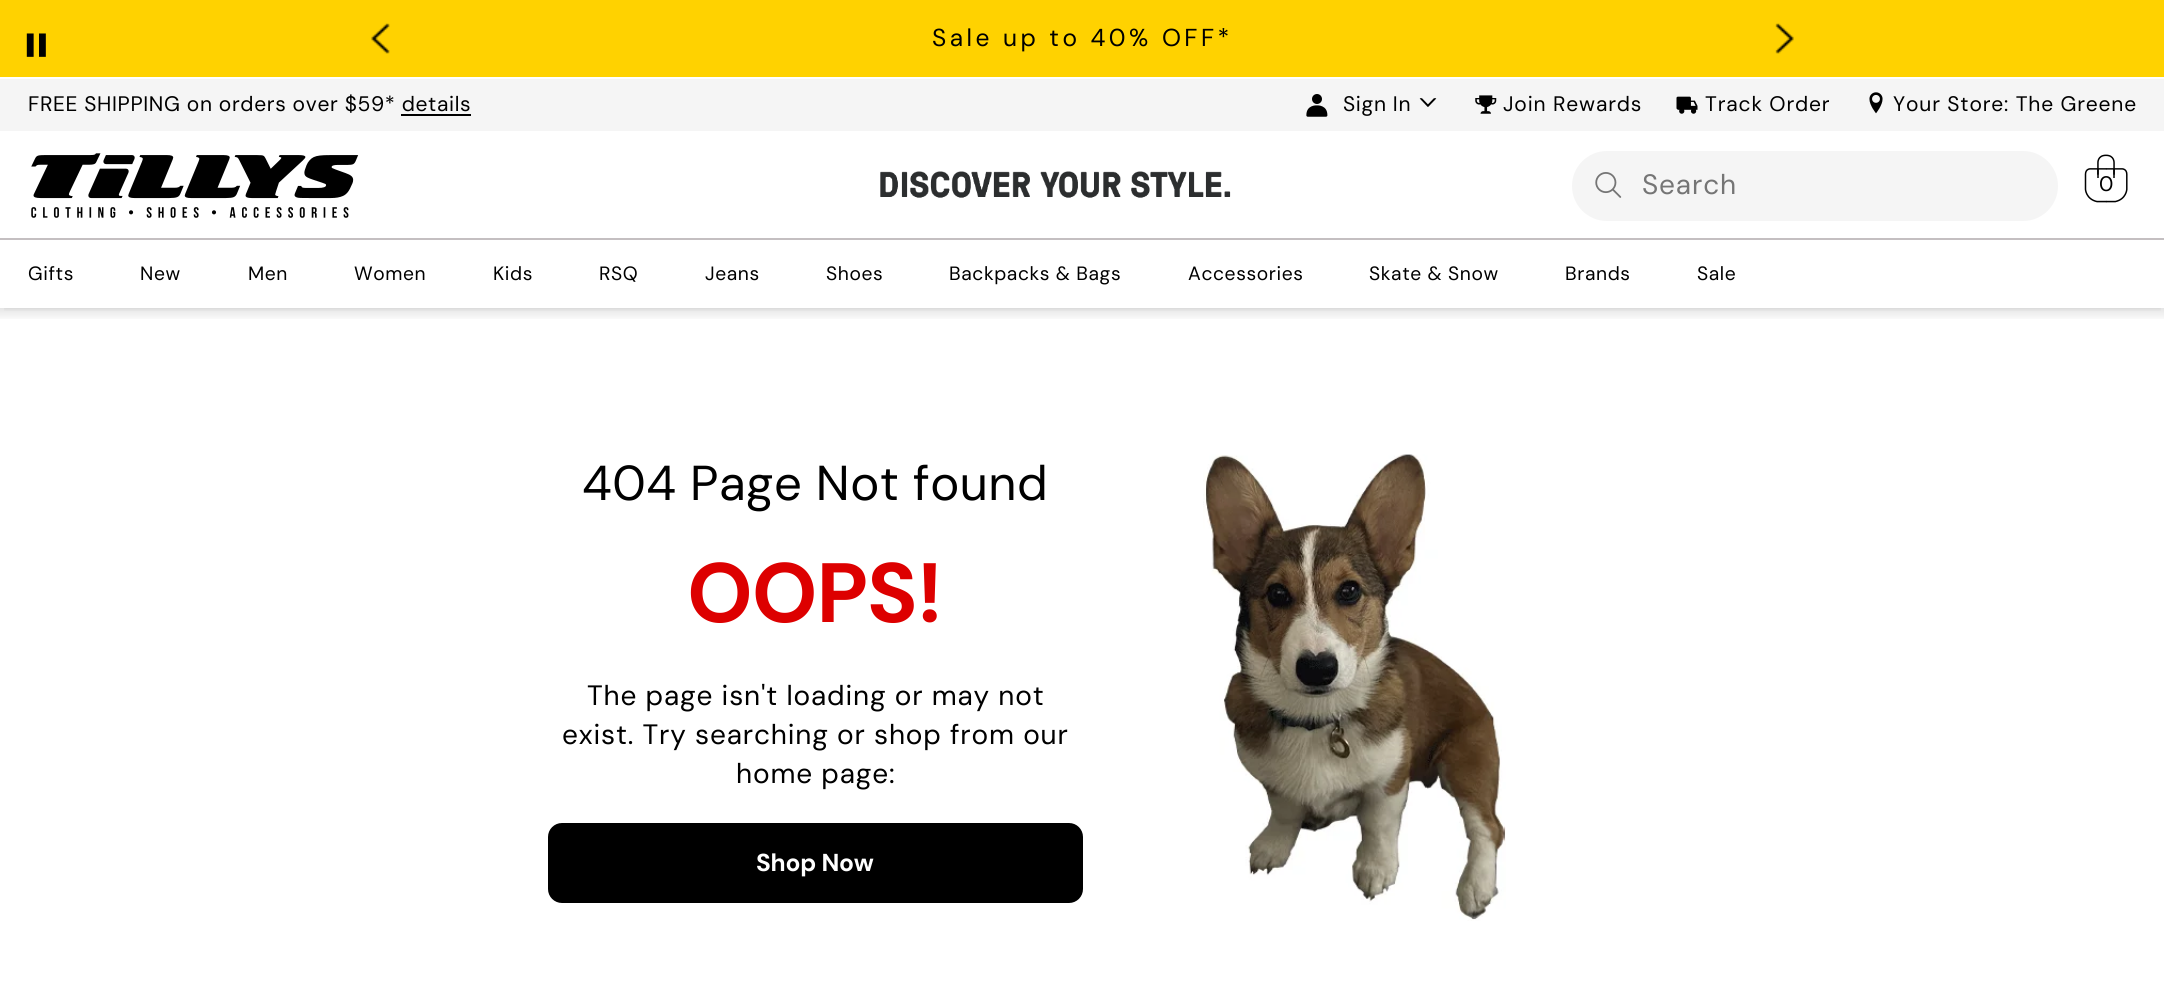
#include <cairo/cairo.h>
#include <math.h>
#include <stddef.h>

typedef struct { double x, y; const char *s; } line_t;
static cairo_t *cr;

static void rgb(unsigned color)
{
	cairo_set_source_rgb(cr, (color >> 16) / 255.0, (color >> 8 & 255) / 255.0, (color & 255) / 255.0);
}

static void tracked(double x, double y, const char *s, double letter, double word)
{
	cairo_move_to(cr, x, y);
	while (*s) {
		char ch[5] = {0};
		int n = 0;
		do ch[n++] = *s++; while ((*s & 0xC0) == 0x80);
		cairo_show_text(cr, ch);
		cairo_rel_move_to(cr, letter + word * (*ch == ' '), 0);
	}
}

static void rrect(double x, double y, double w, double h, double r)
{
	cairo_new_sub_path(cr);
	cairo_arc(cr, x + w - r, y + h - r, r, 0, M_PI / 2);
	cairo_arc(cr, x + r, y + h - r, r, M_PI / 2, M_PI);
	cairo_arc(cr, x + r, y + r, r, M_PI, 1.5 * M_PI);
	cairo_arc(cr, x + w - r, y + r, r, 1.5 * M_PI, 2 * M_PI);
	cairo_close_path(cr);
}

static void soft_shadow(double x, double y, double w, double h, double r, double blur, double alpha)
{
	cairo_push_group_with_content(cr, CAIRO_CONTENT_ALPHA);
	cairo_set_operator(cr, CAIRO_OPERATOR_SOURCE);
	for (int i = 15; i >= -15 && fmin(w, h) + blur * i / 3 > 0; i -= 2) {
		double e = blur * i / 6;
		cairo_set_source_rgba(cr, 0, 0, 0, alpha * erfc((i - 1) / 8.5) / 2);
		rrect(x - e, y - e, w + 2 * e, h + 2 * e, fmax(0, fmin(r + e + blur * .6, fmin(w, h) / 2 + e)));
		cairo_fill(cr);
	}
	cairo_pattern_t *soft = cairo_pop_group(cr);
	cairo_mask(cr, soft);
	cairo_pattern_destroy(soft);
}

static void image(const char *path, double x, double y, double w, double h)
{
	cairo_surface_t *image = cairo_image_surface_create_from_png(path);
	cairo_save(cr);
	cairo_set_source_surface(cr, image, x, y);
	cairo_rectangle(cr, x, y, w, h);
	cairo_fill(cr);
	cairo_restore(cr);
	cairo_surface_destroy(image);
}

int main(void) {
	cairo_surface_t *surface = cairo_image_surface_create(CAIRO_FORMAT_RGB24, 2164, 1004);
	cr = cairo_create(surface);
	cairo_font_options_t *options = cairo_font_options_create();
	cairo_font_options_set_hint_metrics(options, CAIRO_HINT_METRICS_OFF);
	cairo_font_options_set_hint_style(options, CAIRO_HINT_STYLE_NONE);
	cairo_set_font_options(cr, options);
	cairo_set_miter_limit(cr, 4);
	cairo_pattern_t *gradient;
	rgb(0xffffff);
	cairo_paint(cr);
	rgb(0xffd200);
	cairo_rectangle(cr, 0, 0, 2164, 77);
	cairo_fill(cr);
	image("img/1.png", 371, 23, 19, 31);
	image("img/2.png", 1775, 23, 19, 31);
	rgb(0xf5f5f5);
	cairo_rectangle(cr, 0, 79, 2164, 52);
	cairo_fill(cr);
	rgb(0x000000);
	cairo_rectangle(cr, 401, 114, 70, 2);
	cairo_fill(cr);
	image("img/3.png", 1306, 94, 22, 23);
	image("img/4.png", 1419, 98, 18, 9);
	image("img/5.png", 1475, 95, 22, 19);
	image("img/6.png", 1676, 96, 22, 18);
	image("img/7.png", 1869, 92, 14, 22);
	cairo_save(cr);
	cairo_rectangle(cr, 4, 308, 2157, 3);
	cairo_clip(cr);
	rgb(0x000000);
	soft_shadow(4, 151, 2157, 154, 0, 4.5, 0.2);
	cairo_restore(cr);
	image("img/8.png", 31, 153, 328, 65);
	image("img/9.png", 880, 171, 351, 27);
	rgb(0xf5f5f5);
	rrect(1572, 151, 486, 70, 35);
	cairo_fill(cr);
	image("img/10.png", 1595, 172, 27, 26);
	image("img/11.png", 2084, 154, 44, 49);
	rgb(0xffffff);
	cairo_rectangle(cr, 0, 301, 2164, 7);
	cairo_fill(cr);
	rgb(0xc4bfc1);
	cairo_rectangle(cr, 0, 238, 2164, 2);
	cairo_fill(cr);
	gradient = cairo_pattern_create_linear(1082, 308, 1082, 322);
	cairo_pattern_add_color_stop_rgba(gradient, 0, 0, 0, 0, 0.1);
	cairo_pattern_add_color_stop_rgba(gradient, 1, 0, 0, 0, 0);
	cairo_set_source(cr, gradient);
	cairo_pattern_destroy(gradient);
	cairo_rectangle(cr, 0, 308, 2164, 11);
	cairo_fill(cr);
	rgb(0x000000);
	rrect(549, 824, 533, 78, 13);
	cairo_fill_preserve(cr);
	cairo_stroke(cr);
	image("img/12.png", 1203, 454, 303, 467);
	cairo_select_font_face(cr, "Liberation Sans", CAIRO_FONT_SLANT_NORMAL, CAIRO_FONT_WEIGHT_BOLD);
	cairo_set_font_size(cr, 19.25);
	tracked(20, 51, "▐", 0.85, 0);
	tracked(39, 51, "▌", 0.85, 0);
	cairo_select_font_face(cr, "DM Sans", CAIRO_FONT_SLANT_NORMAL, CAIRO_FONT_WEIGHT_NORMAL);
	cairo_set_font_size(cr, 24.5);
	tracked(932, 46, "Sale up to 40% OFF*", 3.5, 0);
	cairo_set_font_size(cr, 21);
	tracked(28, 111, "FREE SHIPPING on orders over $59* details", 0.65, 0);
	tracked(1343, 111, "Sign In", 0.65, 0);
	{
		static const line_t items[] = {
			{1503, 111, "Join Rewards"},
			{1705, 111, "Track Order"},
			{1893, 111, "Your Store: The Greene"},
		};
		for (size_t i = 0; i < sizeof items / sizeof *items; i++) {
			tracked(items[i].x, items[i].y, items[i].s, 0.85, 0);
		}
	}
	cairo_set_font_size(cr, 28);
	rgb(0x757575);
	tracked(1642, 194, "Search", 0.85, 0);
	cairo_set_font_size(cr, 21);
	rgb(0x000000);
	tracked(2099, 191, "0", 0.85, 0);
	cairo_set_font_size(cr, 19.25);
	{
		static const line_t items[] = {
			{28, 280, "Gifts"},
			{140, 280, "New"},
			{248, 280, "Men"},
			{354, 280, "Women"},
			{493, 280, "Kids"},
			{599, 280, "RSQ"},
			{705, 280, "Jeans"},
			{826, 280, "Shoes"},
			{949, 280, "Backpacks & Bags"},
			{1188, 280, "Accessories"},
			{1369, 280, "Skate & Snow"},
			{1565, 280, "Brands"},
			{1697, 280, "Sale"},
		};
		for (size_t i = 0; i < sizeof items / sizeof *items; i++) {
			tracked(items[i].x, items[i].y, items[i].s, 0.6, 0);
		}
	}
	cairo_set_font_size(cr, 49);
	tracked(582, 500, "404 Page Not found", 0.5, 0);
	cairo_select_font_face(cr, "DM Sans", CAIRO_FONT_SLANT_NORMAL, CAIRO_FONT_WEIGHT_BOLD);
	cairo_set_font_size(cr, 84);
	rgb(0xdd0000);
	tracked(687, 622, "OOPS!", -1, 0);
	cairo_select_font_face(cr, "DM Sans", CAIRO_FONT_SLANT_NORMAL, CAIRO_FONT_WEIGHT_NORMAL);
	cairo_set_font_size(cr, 28);
	rgb(0x000000);
	{
		static const line_t items[] = {
			{587, 705, "The page isn't loading or may not"},
			{562, 744, "exist. Try searching or shop from our"},
			{736, 783, "home page:"},
		};
		for (size_t i = 0; i < sizeof items / sizeof *items; i++) {
			tracked(items[i].x, items[i].y, items[i].s, 0.85, 0);
		}
	}
	cairo_select_font_face(cr, "DM Sans", CAIRO_FONT_SLANT_NORMAL, CAIRO_FONT_WEIGHT_BOLD);
	cairo_set_font_size(cr, 24.5);
	rgb(0xffffff);
	tracked(756, 871, "Shop Now", -0.25, 0);
	cairo_surface_write_to_png(surface, "page.png");
	cairo_font_options_destroy(options);
	cairo_destroy(cr);
	cairo_surface_destroy(surface);
	return 0;
}
